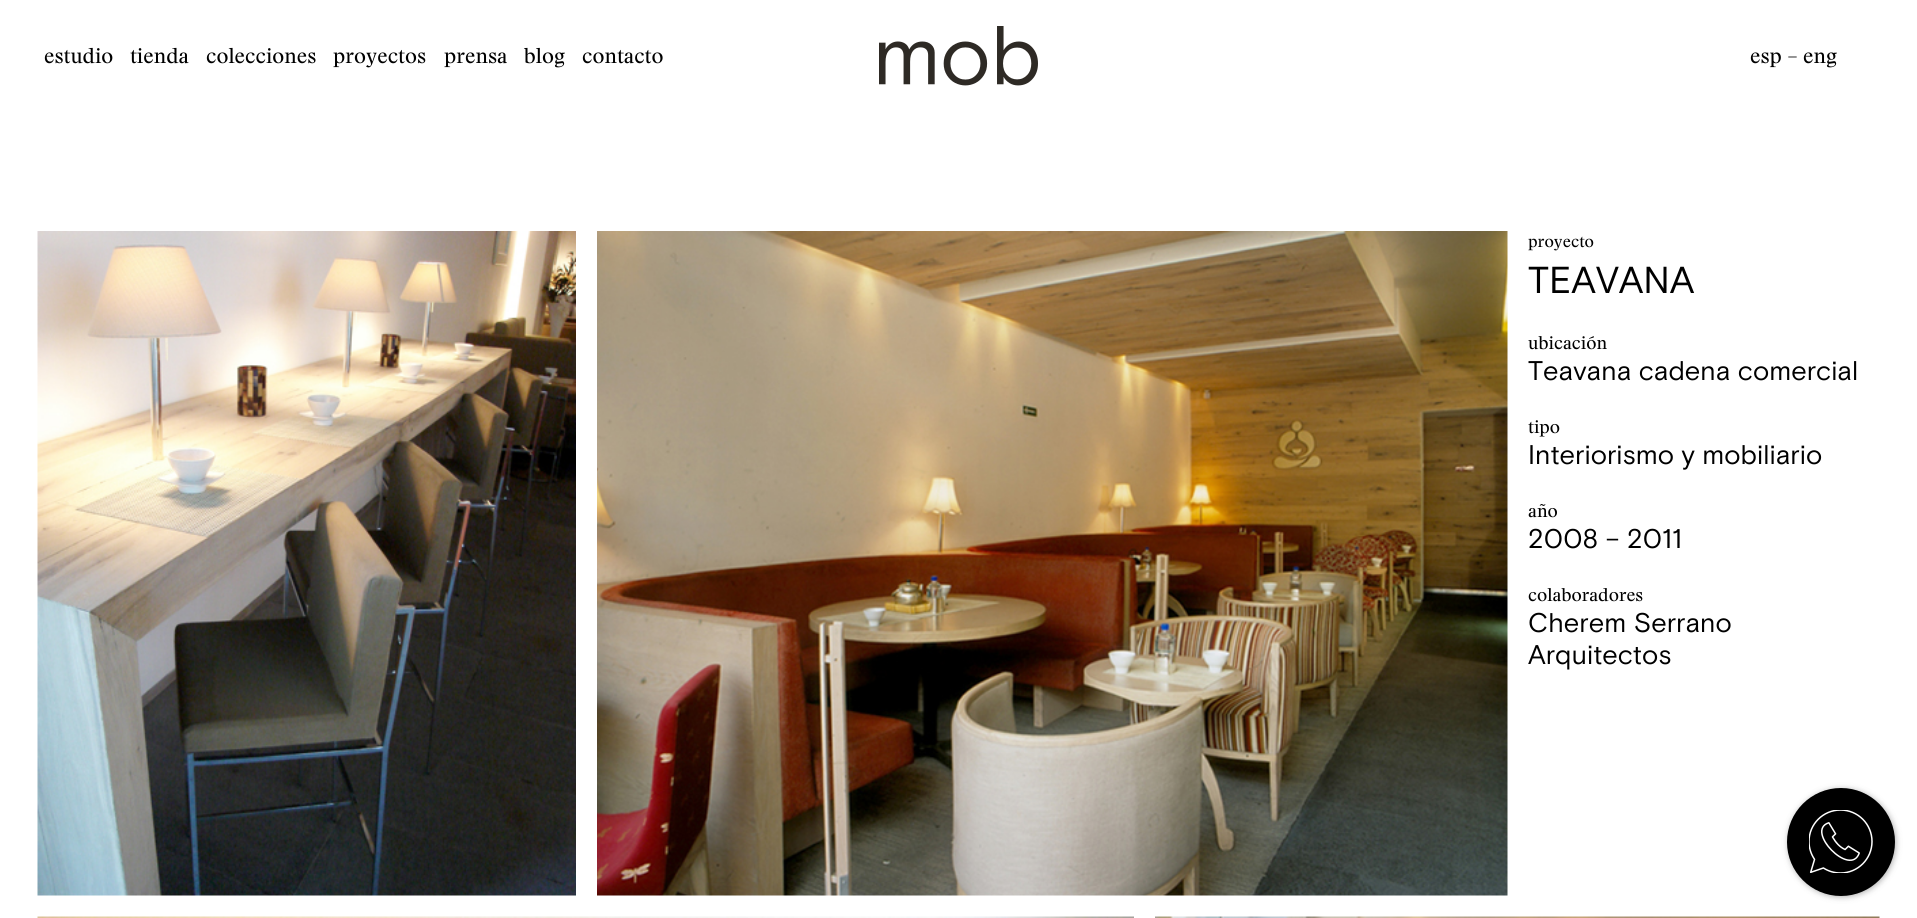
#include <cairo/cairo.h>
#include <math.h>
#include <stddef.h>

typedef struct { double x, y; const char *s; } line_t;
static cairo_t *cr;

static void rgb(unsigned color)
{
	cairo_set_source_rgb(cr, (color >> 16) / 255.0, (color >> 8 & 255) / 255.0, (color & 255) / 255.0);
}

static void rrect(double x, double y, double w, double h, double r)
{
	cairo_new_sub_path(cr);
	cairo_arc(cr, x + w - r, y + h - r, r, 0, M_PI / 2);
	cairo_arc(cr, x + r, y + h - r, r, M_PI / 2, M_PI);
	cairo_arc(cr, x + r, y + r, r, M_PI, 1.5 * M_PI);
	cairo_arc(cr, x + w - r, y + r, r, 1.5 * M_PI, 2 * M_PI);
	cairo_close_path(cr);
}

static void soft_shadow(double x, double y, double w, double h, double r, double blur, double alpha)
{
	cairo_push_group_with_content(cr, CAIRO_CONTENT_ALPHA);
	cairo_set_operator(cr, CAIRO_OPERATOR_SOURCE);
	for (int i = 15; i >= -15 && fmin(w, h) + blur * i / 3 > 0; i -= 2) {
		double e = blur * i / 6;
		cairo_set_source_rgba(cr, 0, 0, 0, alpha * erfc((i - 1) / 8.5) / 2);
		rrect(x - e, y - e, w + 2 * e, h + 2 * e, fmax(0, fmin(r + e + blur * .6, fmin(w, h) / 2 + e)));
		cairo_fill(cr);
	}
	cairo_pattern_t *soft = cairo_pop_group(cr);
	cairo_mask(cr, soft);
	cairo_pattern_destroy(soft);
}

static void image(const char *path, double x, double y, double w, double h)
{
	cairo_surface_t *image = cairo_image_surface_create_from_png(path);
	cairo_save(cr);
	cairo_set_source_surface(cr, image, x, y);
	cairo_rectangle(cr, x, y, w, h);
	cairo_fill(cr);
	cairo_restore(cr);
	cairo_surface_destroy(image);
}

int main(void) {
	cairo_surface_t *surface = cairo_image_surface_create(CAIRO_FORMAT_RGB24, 1917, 918);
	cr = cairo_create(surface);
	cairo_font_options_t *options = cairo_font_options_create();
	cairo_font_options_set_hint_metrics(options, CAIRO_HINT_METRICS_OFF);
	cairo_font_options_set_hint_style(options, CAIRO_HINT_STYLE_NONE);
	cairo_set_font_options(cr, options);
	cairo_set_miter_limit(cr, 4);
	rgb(0xffffff);
	cairo_paint(cr);
	image("img/1.png", 879, 26, 159, 60);
	image("img/2.png", 37, 231, 539, 665);
	image("img/3.png", 597, 231, 911, 665);
	image("img/4.png", 37, 916, 1097, 2);
	image("img/5.png", 1155, 916, 725, 2);
	rgb(0x3c3c3c);
	soft_shadow(1788, 789, 108, 108, 54, 3, 0.4);
	rgb(0x000000);
	cairo_arc(cr, 1841, 842, 54, 0, 2 * M_PI);
	cairo_fill(cr);
	image("img/6.png", 1809, 810, 64, 63);
	cairo_select_font_face(cr, "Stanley", CAIRO_FONT_SLANT_NORMAL, CAIRO_FONT_WEIGHT_NORMAL);
	cairo_set_font_size(cr, 21);
	{
		static const line_t items[] = {
			{44, 63, "estudio"},
			{130, 63, "tienda"},
			{206, 63, "colecciones"},
			{333, 63, "proyectos"},
			{444, 63, "prensa"},
			{524, 63, "blog"},
			{582, 63, "contacto"},
			{1750, 63, "esp – eng"},
		};
		for (size_t i = 0; i < sizeof items / sizeof *items; i++) {
			cairo_move_to(cr, items[i].x, items[i].y);
			cairo_show_text(cr, items[i].s);
		}
	}
	cairo_set_font_size(cr, 16.5);
	cairo_move_to(cr, 1528, 247);
	cairo_show_text(cr, "proyecto");
	cairo_select_font_face(cr, "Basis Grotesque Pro", CAIRO_FONT_SLANT_NORMAL, CAIRO_FONT_WEIGHT_NORMAL);
	cairo_set_font_size(cr, 37.5);
	cairo_move_to(cr, 1528, 293);
	cairo_show_text(cr, "TEAVANA");
	cairo_select_font_face(cr, "Stanley", CAIRO_FONT_SLANT_NORMAL, CAIRO_FONT_WEIGHT_NORMAL);
	cairo_set_font_size(cr, 18);
	cairo_move_to(cr, 1528, 349);
	cairo_show_text(cr, "ubicación");
	cairo_select_font_face(cr, "Basis Grotesque Pro", CAIRO_FONT_SLANT_NORMAL, CAIRO_FONT_WEIGHT_NORMAL);
	cairo_set_font_size(cr, 27);
	cairo_move_to(cr, 1528, 380);
	cairo_show_text(cr, "Teavana cadena comercial");
	cairo_select_font_face(cr, "Stanley", CAIRO_FONT_SLANT_NORMAL, CAIRO_FONT_WEIGHT_NORMAL);
	cairo_set_font_size(cr, 18);
	cairo_move_to(cr, 1528, 433);
	cairo_show_text(cr, "tipo");
	cairo_select_font_face(cr, "Basis Grotesque Pro", CAIRO_FONT_SLANT_NORMAL, CAIRO_FONT_WEIGHT_NORMAL);
	cairo_set_font_size(cr, 27);
	cairo_move_to(cr, 1528, 464);
	cairo_show_text(cr, "Interiorismo y mobiliario");
	cairo_select_font_face(cr, "Stanley", CAIRO_FONT_SLANT_NORMAL, CAIRO_FONT_WEIGHT_NORMAL);
	cairo_set_font_size(cr, 18);
	cairo_move_to(cr, 1528, 517);
	cairo_show_text(cr, "año");
	cairo_select_font_face(cr, "Basis Grotesque Pro", CAIRO_FONT_SLANT_NORMAL, CAIRO_FONT_WEIGHT_NORMAL);
	cairo_set_font_size(cr, 27);
	cairo_move_to(cr, 1528, 548);
	cairo_show_text(cr, "2008 – 2011");
	cairo_select_font_face(cr, "Stanley", CAIRO_FONT_SLANT_NORMAL, CAIRO_FONT_WEIGHT_NORMAL);
	cairo_set_font_size(cr, 18);
	cairo_move_to(cr, 1528, 601);
	cairo_show_text(cr, "colaboradores");
	cairo_select_font_face(cr, "Basis Grotesque Pro", CAIRO_FONT_SLANT_NORMAL, CAIRO_FONT_WEIGHT_NORMAL);
	cairo_set_font_size(cr, 27);
	cairo_move_to(cr, 1528, 632);
	cairo_show_text(cr, "Cherem Serrano");
	cairo_move_to(cr, 1528, 664);
	cairo_show_text(cr, "Arquitectos");
	cairo_surface_write_to_png(surface, "page.png");
	cairo_font_options_destroy(options);
	cairo_destroy(cr);
	cairo_surface_destroy(surface);
	return 0;
}
